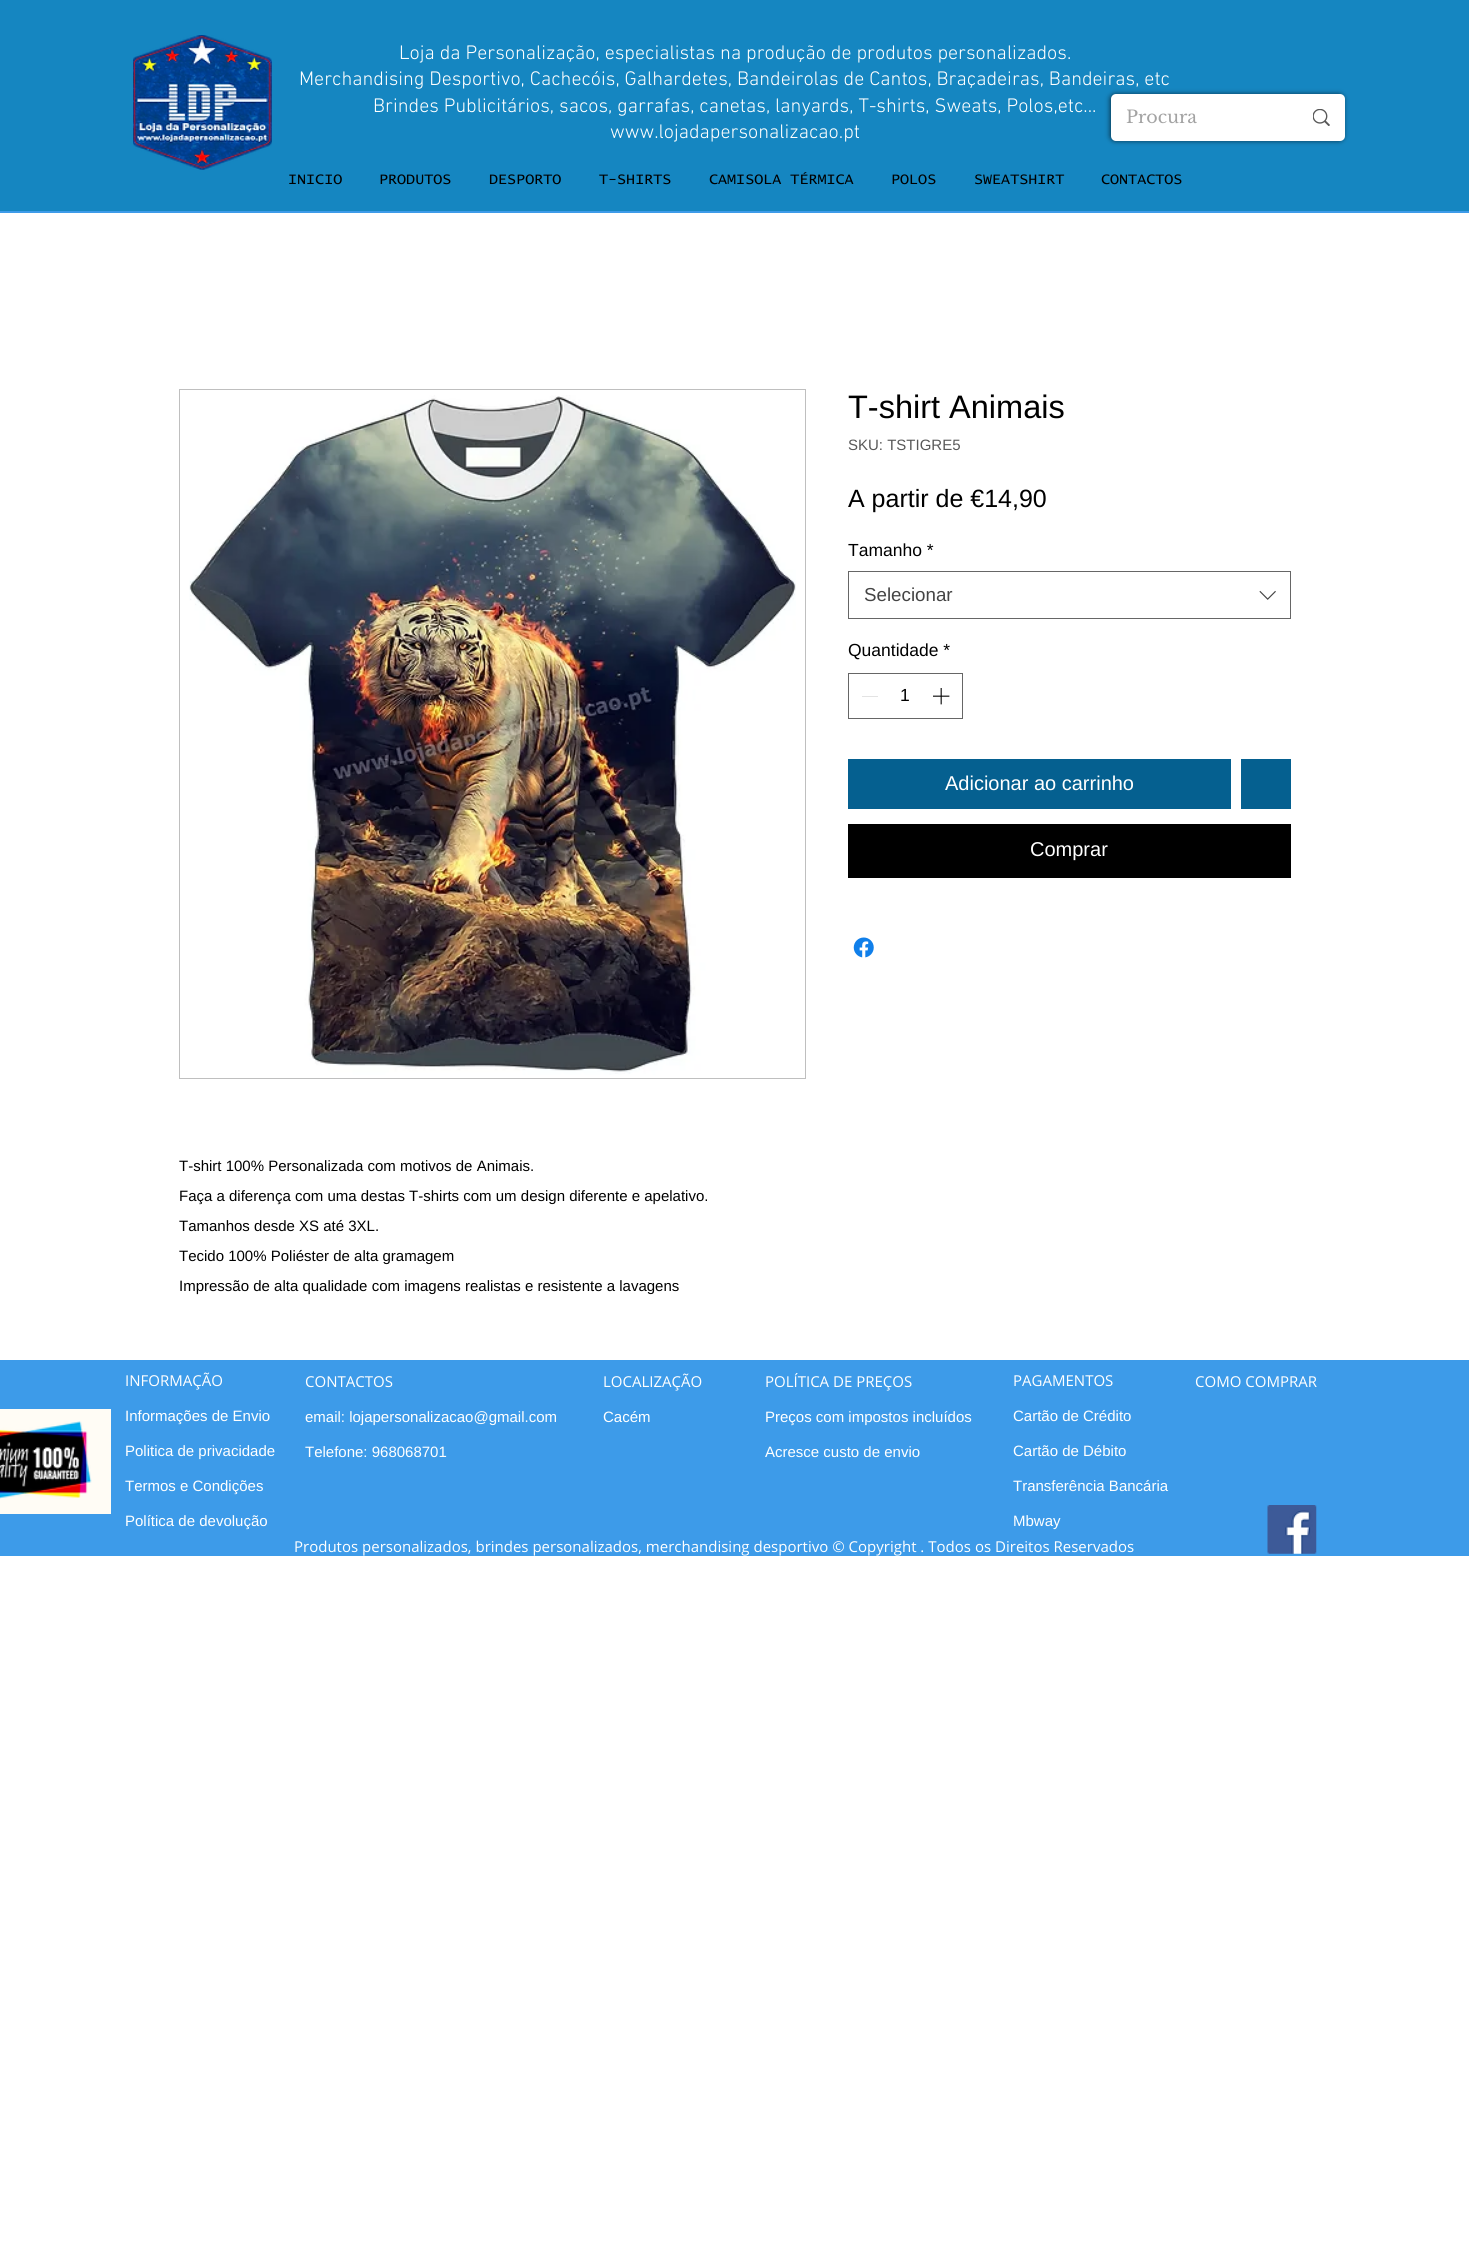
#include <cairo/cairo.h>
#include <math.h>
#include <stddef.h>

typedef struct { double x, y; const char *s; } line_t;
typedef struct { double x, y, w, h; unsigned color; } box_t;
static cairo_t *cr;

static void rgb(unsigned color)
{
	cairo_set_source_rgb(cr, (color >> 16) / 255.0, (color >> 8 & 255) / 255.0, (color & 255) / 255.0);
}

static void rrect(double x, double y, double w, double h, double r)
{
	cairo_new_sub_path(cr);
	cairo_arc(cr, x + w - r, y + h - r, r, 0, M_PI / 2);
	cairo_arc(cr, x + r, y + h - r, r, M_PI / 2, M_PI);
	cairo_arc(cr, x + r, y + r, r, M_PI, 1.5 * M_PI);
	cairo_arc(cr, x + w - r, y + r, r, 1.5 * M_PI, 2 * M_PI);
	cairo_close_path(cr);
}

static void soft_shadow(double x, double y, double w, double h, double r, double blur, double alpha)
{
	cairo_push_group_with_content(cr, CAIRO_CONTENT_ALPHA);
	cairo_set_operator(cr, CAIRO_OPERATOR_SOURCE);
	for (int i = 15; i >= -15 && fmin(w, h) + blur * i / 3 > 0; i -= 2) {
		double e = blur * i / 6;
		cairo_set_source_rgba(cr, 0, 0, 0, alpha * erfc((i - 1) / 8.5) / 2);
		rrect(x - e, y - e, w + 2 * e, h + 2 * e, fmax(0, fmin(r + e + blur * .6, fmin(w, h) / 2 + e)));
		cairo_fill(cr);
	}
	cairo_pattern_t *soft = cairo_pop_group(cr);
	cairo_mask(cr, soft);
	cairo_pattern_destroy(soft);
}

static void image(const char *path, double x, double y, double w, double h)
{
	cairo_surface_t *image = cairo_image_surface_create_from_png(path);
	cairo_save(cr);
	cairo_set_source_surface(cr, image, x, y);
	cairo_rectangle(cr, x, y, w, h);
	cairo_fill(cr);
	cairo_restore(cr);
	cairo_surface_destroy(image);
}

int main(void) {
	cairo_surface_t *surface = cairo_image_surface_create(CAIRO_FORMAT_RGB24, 1469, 2257);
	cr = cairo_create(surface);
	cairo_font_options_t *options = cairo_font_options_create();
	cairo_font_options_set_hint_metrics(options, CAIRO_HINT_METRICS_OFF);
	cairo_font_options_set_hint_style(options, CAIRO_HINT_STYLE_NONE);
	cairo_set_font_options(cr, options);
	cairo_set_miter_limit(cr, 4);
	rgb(0xffffff);
	cairo_paint(cr);
	rgb(0x1586c1);
	cairo_rectangle(cr, 0, 0, 1469, 211);
	cairo_fill(cr);
	image("img/1.png", 133, 35, 139, 135);
	rgb(0x000000);
	soft_shadow(1110, 94, 234, 47, 5, 2.5, 0.6);
	rgb(0xffffff);
	rrect(1111, 94, 234, 47, 5);
	cairo_fill(cr);
	image("img/2.png", 1313, 109, 17, 17);
	rgb(0x3d9be9);
	cairo_rectangle(cr, 0, 211, 1469, 2);
	cairo_fill(cr);
	cairo_rectangle(cr, 848.5, 571.5, 442, 47);
	rgb(0x666666);
	cairo_set_line_width(cr, 1);
	cairo_stroke(cr);
	image("img/3.png", 1259, 590, 17, 10);
	cairo_rectangle(cr, 848.5, 673.5, 114, 45);
	cairo_stroke(cr);
	rgb(0xe3e3e3);
	cairo_rectangle(cr, 862, 696, 16, 1);
	cairo_fill(cr);
	image("img/4.png", 933, 688, 17, 17);
	{
		static const box_t items[] = {
			{848, 759, 383, 50, 0x056090},
			{1241, 759, 50, 50, 0x056090},
			{848, 824, 443, 54, 0x000000},
		};
		for (size_t i = 0; i < sizeof items / sizeof *items; i++) {
			rgb(items[i].color);
			cairo_rectangle(cr, items[i].x, items[i].y, items[i].w, items[i].h);
			cairo_fill(cr);
		}
	}
	image("img/5.png", 853, 937, 21, 21);
	cairo_rectangle(cr, 179.5, 389.5, 626, 689);
	rgb(0xbfbfbf);
	cairo_stroke(cr);
	image("img/6.png", 189, 395, 607, 680);
	rgb(0x3d9be9);
	cairo_rectangle(cr, 0, 1360, 1469, 196);
	cairo_fill(cr);
	rgb(0xfffcf5);
	cairo_rectangle(cr, 0, 1409, 111, 105);
	cairo_fill(cr);
	image("img/7.png", 0, 1421, 92, 78);
	image("img/8.png", 1267, 1505, 50, 49);
	cairo_select_font_face(cr, "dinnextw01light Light", CAIRO_FONT_SLANT_NORMAL, CAIRO_FONT_WEIGHT_NORMAL);
	cairo_set_font_size(cr, 20);
	rgb(0xffffff);
	{
		static const line_t items[] = {
			{399, 59, "Loja da Personalização, especialistas na produção de produtos personalizados."},
			{299, 85, "Merchandising Desportivo, Cachecóis, Galhardetes, Bandeirolas de Cantos, Braçadeiras, Bandeiras, etc"},
			{373, 112, "Brindes Publicitários, sacos, garrafas, canetas, lanyards, T-shirts, Sweats, Polos,etc..."},
			{610, 138, "www.lojadapersonalizacao.pt"},
		};
		for (size_t i = 0; i < sizeof items / sizeof *items; i++) {
			cairo_move_to(cr, items[i].x, items[i].y);
			cairo_show_text(cr, items[i].s);
		}
	}
	cairo_select_font_face(cr, "Libre Baskerville", CAIRO_FONT_SLANT_NORMAL, CAIRO_FONT_WEIGHT_NORMAL);
	cairo_set_font_size(cr, 17.5);
	rgb(0xa3a3a3);
	cairo_move_to(cr, 1126, 123);
	cairo_show_text(cr, "Procura");
	cairo_select_font_face(cr, "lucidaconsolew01", CAIRO_FONT_SLANT_NORMAL, CAIRO_FONT_WEIGHT_NORMAL);
	cairo_set_font_size(cr, 15);
	rgb(0x000000);
	{
		static const line_t items[] = {
			{288, 184, "INICIO"},
			{379, 184, "PRODUTOS"},
			{489, 184, "DESPORTO"},
			{599, 184, "T-SHIRTS"},
			{709, 184, "CAMISOLA TÉRMICA"},
			{891, 184, "POLOS"},
			{974, 184, "SWEATSHIRT"},
			{1101, 184, "CONTACTOS"},
		};
		for (size_t i = 0; i < sizeof items / sizeof *items; i++) {
			cairo_move_to(cr, items[i].x, items[i].y);
			cairo_show_text(cr, items[i].s);
		}
	}
	cairo_select_font_face(cr, "Liberation Sans", CAIRO_FONT_SLANT_NORMAL, CAIRO_FONT_WEIGHT_NORMAL);
	cairo_set_font_size(cr, 32.5);
	cairo_move_to(cr, 848, 418);
	cairo_show_text(cr, "T-shirt Animais");
	cairo_set_font_size(cr, 15);
	rgb(0x585858);
	cairo_move_to(cr, 848, 450);
	cairo_show_text(cr, "SKU: TSTIGRE5");
	cairo_set_font_size(cr, 25);
	rgb(0x000000);
	cairo_move_to(cr, 848, 507);
	cairo_show_text(cr, "A partir de €14,90");
	cairo_set_font_size(cr, 17.5);
	cairo_move_to(cr, 848, 556);
	cairo_show_text(cr, "Tamanho *");
	cairo_set_font_size(cr, 18.75);
	rgb(0x444444);
	cairo_move_to(cr, 864, 601);
	cairo_show_text(cr, "Selecionar");
	cairo_set_font_size(cr, 17.5);
	rgb(0x000000);
	cairo_move_to(cr, 848, 656);
	cairo_show_text(cr, "Quantidade *");
	cairo_move_to(cr, 900, 701);
	cairo_show_text(cr, "1");
	cairo_set_font_size(cr, 20);
	rgb(0xffffff);
	cairo_move_to(cr, 945, 790);
	cairo_show_text(cr, "Adicionar ao carrinho");
	cairo_move_to(cr, 1030, 856);
	cairo_show_text(cr, "Comprar");
	cairo_set_font_size(cr, 15);
	rgb(0x000000);
	{
		static const line_t items[] = {
			{179, 1171, "T-shirt 100% Personalizada com motivos de Animais."},
			{179, 1201, "Faça a diferença com uma destas T-shirts com um design diferente e apelativo."},
			{179, 1231, "Tamanhos desde XS até 3XL."},
			{179, 1261, "Tecido 100% Poliéster de alta gramagem"},
			{179, 1291, "Impressão de alta qualidade com imagens realistas e resistente a lavagens"},
		};
		for (size_t i = 0; i < sizeof items / sizeof *items; i++) {
			cairo_move_to(cr, items[i].x, items[i].y);
			cairo_show_text(cr, items[i].s);
		}
	}
	cairo_select_font_face(cr, "Open Sans", CAIRO_FONT_SLANT_NORMAL, CAIRO_FONT_WEIGHT_NORMAL);
	rgb(0xffffff);
	cairo_move_to(cr, 125, 1386);
	cairo_show_text(cr, "INFORMAÇÃO");
	cairo_select_font_face(cr, "Liberation Sans", CAIRO_FONT_SLANT_NORMAL, CAIRO_FONT_WEIGHT_NORMAL);
	{
		static const line_t items[] = {
			{125, 1421, "Informações de Envio"},
			{125, 1456, "Politica de privacidade"},
			{125, 1491, "Termos e Condições"},
			{125, 1526, "Política de devolução"},
		};
		for (size_t i = 0; i < sizeof items / sizeof *items; i++) {
			cairo_move_to(cr, items[i].x, items[i].y);
			cairo_show_text(cr, items[i].s);
		}
	}
	cairo_select_font_face(cr, "Open Sans", CAIRO_FONT_SLANT_NORMAL, CAIRO_FONT_WEIGHT_NORMAL);
	cairo_move_to(cr, 305, 1387);
	cairo_show_text(cr, "CONTACTOS");
	cairo_select_font_face(cr, "Liberation Sans", CAIRO_FONT_SLANT_NORMAL, CAIRO_FONT_WEIGHT_NORMAL);
	cairo_move_to(cr, 305, 1422);
	cairo_show_text(cr, "email: lojapersonalizacao@gmail.com");
	cairo_move_to(cr, 305, 1457);
	cairo_show_text(cr, "Telefone: 968068701");
	cairo_select_font_face(cr, "Open Sans", CAIRO_FONT_SLANT_NORMAL, CAIRO_FONT_WEIGHT_NORMAL);
	cairo_move_to(cr, 603, 1387);
	cairo_show_text(cr, "LOCALIZAÇÃO");
	cairo_select_font_face(cr, "Liberation Sans", CAIRO_FONT_SLANT_NORMAL, CAIRO_FONT_WEIGHT_NORMAL);
	cairo_move_to(cr, 603, 1422);
	cairo_show_text(cr, "Cacém");
	cairo_select_font_face(cr, "Open Sans", CAIRO_FONT_SLANT_NORMAL, CAIRO_FONT_WEIGHT_NORMAL);
	cairo_move_to(cr, 765, 1387);
	cairo_show_text(cr, "POLÍTICA DE PREÇOS");
	cairo_select_font_face(cr, "Liberation Sans", CAIRO_FONT_SLANT_NORMAL, CAIRO_FONT_WEIGHT_NORMAL);
	cairo_move_to(cr, 765, 1422);
	cairo_show_text(cr, "Preços com impostos incluídos");
	cairo_move_to(cr, 765, 1457);
	cairo_show_text(cr, "Acresce custo de envio");
	cairo_select_font_face(cr, "Open Sans", CAIRO_FONT_SLANT_NORMAL, CAIRO_FONT_WEIGHT_NORMAL);
	cairo_move_to(cr, 1013, 1386);
	cairo_show_text(cr, "PAGAMENTOS");
	cairo_select_font_face(cr, "Liberation Sans", CAIRO_FONT_SLANT_NORMAL, CAIRO_FONT_WEIGHT_NORMAL);
	{
		static const line_t items[] = {
			{1013, 1421, "Cartão de Crédito"},
			{1013, 1456, "Cartão de Débito"},
			{1013, 1491, "Transferência Bancária"},
			{1013, 1526, "Mbway"},
		};
		for (size_t i = 0; i < sizeof items / sizeof *items; i++) {
			cairo_move_to(cr, items[i].x, items[i].y);
			cairo_show_text(cr, items[i].s);
		}
	}
	cairo_select_font_face(cr, "Open Sans", CAIRO_FONT_SLANT_NORMAL, CAIRO_FONT_WEIGHT_NORMAL);
	cairo_move_to(cr, 1195, 1387);
	cairo_show_text(cr, "COMO COMPRAR");
	cairo_move_to(cr, 294, 1552);
	cairo_show_text(cr, "Produtos personalizados, brindes personalizados, merchandising desportivo © Copyright . Todos os Direitos Reservados");
	cairo_surface_write_to_png(surface, "page.png");
	cairo_font_options_destroy(options);
	cairo_destroy(cr);
	cairo_surface_destroy(surface);
	return 0;
}
